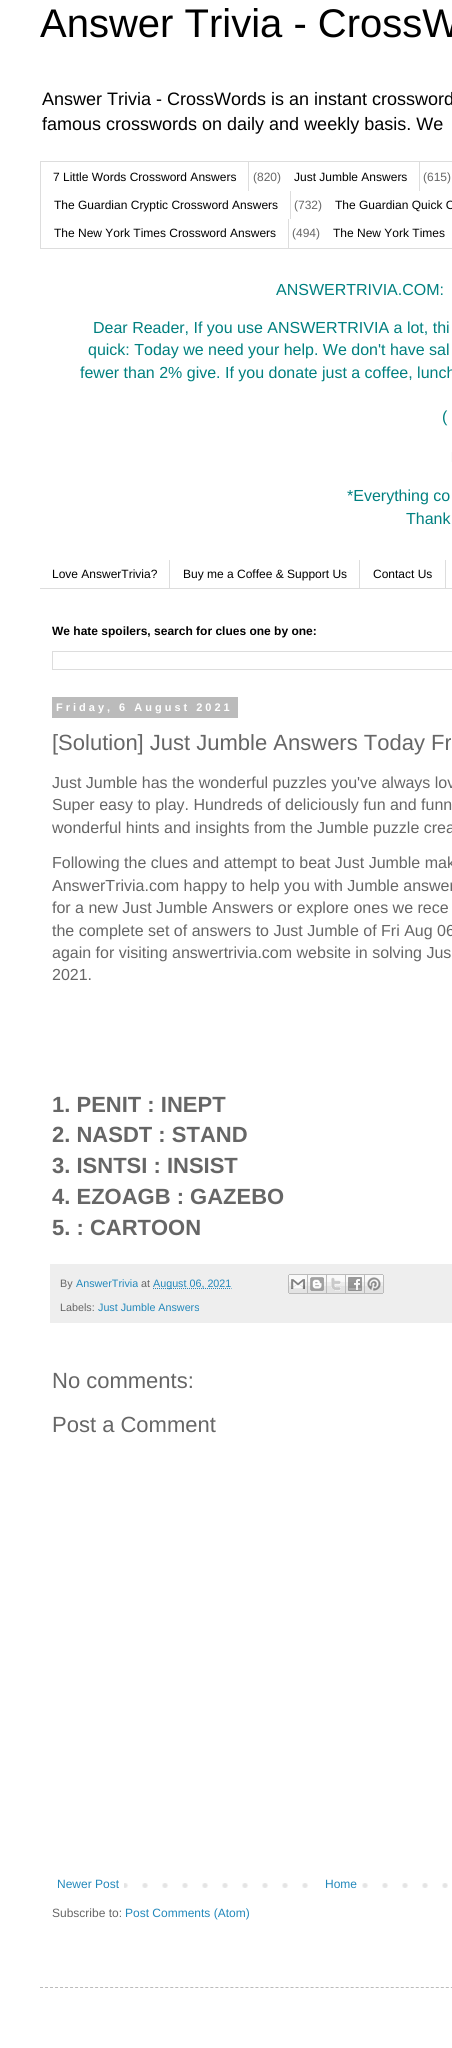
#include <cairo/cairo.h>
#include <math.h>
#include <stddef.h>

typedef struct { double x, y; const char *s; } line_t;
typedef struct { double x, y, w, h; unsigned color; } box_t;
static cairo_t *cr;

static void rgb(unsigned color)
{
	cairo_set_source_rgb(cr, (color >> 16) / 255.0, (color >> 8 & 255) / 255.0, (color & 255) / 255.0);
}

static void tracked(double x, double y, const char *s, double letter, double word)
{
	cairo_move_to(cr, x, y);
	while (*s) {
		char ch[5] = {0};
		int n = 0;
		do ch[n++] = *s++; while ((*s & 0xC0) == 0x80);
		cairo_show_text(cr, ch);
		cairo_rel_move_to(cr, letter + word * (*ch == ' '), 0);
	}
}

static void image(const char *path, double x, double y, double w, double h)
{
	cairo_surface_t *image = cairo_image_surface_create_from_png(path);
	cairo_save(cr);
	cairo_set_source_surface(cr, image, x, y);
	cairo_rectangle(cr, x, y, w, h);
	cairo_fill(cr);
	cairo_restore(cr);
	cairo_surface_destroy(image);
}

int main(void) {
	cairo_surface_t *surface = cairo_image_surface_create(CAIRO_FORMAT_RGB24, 452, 2048);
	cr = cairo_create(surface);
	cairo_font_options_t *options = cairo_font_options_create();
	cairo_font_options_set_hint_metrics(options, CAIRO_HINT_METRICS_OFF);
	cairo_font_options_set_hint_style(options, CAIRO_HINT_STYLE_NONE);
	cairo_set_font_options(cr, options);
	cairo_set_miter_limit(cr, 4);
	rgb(0xffffff);
	cairo_paint(cr);
	cairo_rectangle(cr, 40.5, 161.5, 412, 87);
	rgb(0xdddddd);
	cairo_set_line_width(cr, 1);
	cairo_stroke(cr);
	{
		static const box_t items[] = {
			{248, 162, 1, 29, 0xdddddd},
			{419, 162, 1, 29, 0xdddddd},
			{290, 191, 1, 28, 0xdddddd},
			{288, 219, 1, 29, 0xdddddd},
			{451, 452, 1, 10, 0xfafafa},
			{40, 588, 412, 1, 0xdddddd},
			{169, 560, 1, 28, 0xdddddd},
			{359, 560, 1, 28, 0xdddddd},
			{445, 560, 1, 28, 0xdddddd},
		};
		for (size_t i = 0; i < sizeof items / sizeof *items; i++) {
			rgb(items[i].color);
			cairo_rectangle(cr, items[i].x, items[i].y, items[i].w, items[i].h);
			cairo_fill(cr);
		}
	}
	cairo_rectangle(cr, 52.5, 651.5, 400, 18);
	cairo_stroke(cr);
	rgb(0xbbbbbb);
	cairo_rectangle(cr, 52, 697, 186, 21);
	cairo_fill(cr);
	rgb(0xeeeeee);
	cairo_rectangle(cr, 50, 1264, 402, 59);
	cairo_fill(cr);
	cairo_new_path(cr);
	cairo_move_to(cr, 153, 1288.5);
	cairo_line_to(cr, 231.5, 1288.5);
	rgb(0x2288bb);
	cairo_set_dash(cr, (double[]){1, 1}, 2, 0);
	cairo_stroke(cr);
	image("img/1.png", 288, 1274, 20, 20);
	image("img/2.png", 308, 1274, 19, 20);
	image("img/3.png", 327, 1274, 19, 20);
	image("img/4.png", 346, 1274, 19, 20);
	image("img/5.png", 365, 1274, 19, 20);
	image("img/6.png", 124, 1883, 324, 5);
	rgb(0xffffff);
	cairo_rectangle(cr, 322, 1883, 26, 5);
	cairo_fill(cr);
	cairo_new_path(cr);
	cairo_move_to(cr, 40, 1987.5);
	cairo_line_to(cr, 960, 1987.5);
	rgb(0xbbbbbb);
	cairo_set_dash(cr, (double[]){3, 2.01}, 2, 0);
	cairo_stroke(cr);
	cairo_select_font_face(cr, "Liberation Sans", CAIRO_FONT_SLANT_NORMAL, CAIRO_FONT_WEIGHT_NORMAL);
	cairo_set_font_size(cr, 40);
	rgb(0x000000);
	cairo_move_to(cr, 40, 37);
	cairo_show_text(cr, "Answer Trivia - CrossW");
	cairo_set_font_size(cr, 18);
	cairo_move_to(cr, 42, 105);
	cairo_show_text(cr, "Answer Trivia - CrossWords is an instant crossword");
	cairo_move_to(cr, 42, 130);
	cairo_show_text(cr, "famous crosswords on daily and weekly basis. We");
	cairo_set_font_size(cr, 12);
	cairo_move_to(cr, 53, 181);
	cairo_show_text(cr, "7 Little Words Crossword Answers");
	rgb(0x666666);
	cairo_move_to(cr, 253, 181);
	cairo_show_text(cr, "(820)");
	rgb(0x000000);
	cairo_move_to(cr, 294, 181);
	cairo_show_text(cr, "Just Jumble Answers");
	rgb(0x666666);
	cairo_move_to(cr, 423, 181);
	cairo_show_text(cr, "(615)");
	rgb(0x000000);
	cairo_move_to(cr, 54, 209);
	cairo_show_text(cr, "The Guardian Cryptic Crossword Answers");
	rgb(0x666666);
	cairo_move_to(cr, 294, 209);
	cairo_show_text(cr, "(732)");
	rgb(0x000000);
	cairo_move_to(cr, 335, 209);
	cairo_show_text(cr, "The Guardian Quick C");
	cairo_move_to(cr, 54, 237);
	cairo_show_text(cr, "The New York Times Crossword Answers");
	rgb(0x666666);
	cairo_move_to(cr, 292, 237);
	cairo_show_text(cr, "(494)");
	rgb(0x000000);
	cairo_move_to(cr, 333, 237);
	cairo_show_text(cr, "The New York Times");
	cairo_set_font_size(cr, 16);
	rgb(0x008080);
	{
		static const line_t items[] = {
			{276, 295, "ANSWERTRIVIA.COM:"},
			{93, 333, "Dear Reader, If you use ANSWERTRIVIA a lot, thi"},
			{88, 355, "quick: Today we need your help. We don't have sal"},
			{80, 378, "fewer than 2% give. If you donate just a coffee, lunch"},
			{442, 422, "("},
			{347, 501, "*Everything co"},
			{406, 524, "Thank"},
		};
		for (size_t i = 0; i < sizeof items / sizeof *items; i++) {
			cairo_move_to(cr, items[i].x, items[i].y);
			cairo_show_text(cr, items[i].s);
		}
	}
	cairo_set_font_size(cr, 12);
	rgb(0x000000);
	{
		static const line_t items[] = {
			{52, 578, "Love AnswerTrivia?"},
			{183, 578, "Buy me a Coffee & Support Us"},
			{373, 578, "Contact Us"},
		};
		for (size_t i = 0; i < sizeof items / sizeof *items; i++) {
			cairo_move_to(cr, items[i].x, items[i].y);
			cairo_show_text(cr, items[i].s);
		}
	}
	cairo_select_font_face(cr, "Liberation Sans", CAIRO_FONT_SLANT_NORMAL, CAIRO_FONT_WEIGHT_BOLD);
	cairo_move_to(cr, 52, 635);
	cairo_show_text(cr, "We hate spoilers, search for clues one by one:");
	cairo_set_font_size(cr, 11);
	rgb(0xffffff);
	tracked(56, 711, "Friday, 6 August 2021", 3, 0);
	cairo_select_font_face(cr, "Liberation Sans", CAIRO_FONT_SLANT_NORMAL, CAIRO_FONT_WEIGHT_NORMAL);
	cairo_set_font_size(cr, 22);
	rgb(0x666666);
	cairo_move_to(cr, 52, 750);
	cairo_show_text(cr, "[Solution] Just Jumble Answers Today Fr");
	cairo_set_font_size(cr, 16);
	{
		static const line_t items[] = {
			{52, 788, "Just Jumble has the wonderful puzzles you've always lov"},
			{52, 810, "Super easy to play. Hundreds of deliciously fun and funn"},
			{52, 833, "wonderful hints and insights from the Jumble puzzle crea"},
			{52, 868, "Following the clues and attempt to beat Just Jumble mak"},
			{52, 891, "AnswerTrivia.com happy to help you with Jumble answer"},
			{52, 913, "for a new Just Jumble Answers or explore ones we rece"},
			{52, 936, "the complete set of answers to Just Jumble of Fri Aug 06"},
			{52, 958, "again for visiting answertrivia.com website in solving Jus"},
			{52, 980, "2021."},
		};
		for (size_t i = 0; i < sizeof items / sizeof *items; i++) {
			cairo_move_to(cr, items[i].x, items[i].y);
			cairo_show_text(cr, items[i].s);
		}
	}
	cairo_select_font_face(cr, "Liberation Sans", CAIRO_FONT_SLANT_NORMAL, CAIRO_FONT_WEIGHT_BOLD);
	cairo_set_font_size(cr, 22);
	{
		static const line_t items[] = {
			{52, 1112, "1. PENIT : INEPT"},
			{52, 1142, "2. NASDT : STAND"},
			{52, 1173, "3. ISNTSI : INSIST"},
			{52, 1204, "4. EZOAGB : GAZEBO"},
			{52, 1235, "5. : CARTOON"},
		};
		for (size_t i = 0; i < sizeof items / sizeof *items; i++) {
			cairo_move_to(cr, items[i].x, items[i].y);
			cairo_show_text(cr, items[i].s);
		}
	}
	cairo_select_font_face(cr, "Liberation Sans", CAIRO_FONT_SLANT_NORMAL, CAIRO_FONT_WEIGHT_NORMAL);
	cairo_set_font_size(cr, 10.75);
	cairo_move_to(cr, 60, 1287);
	cairo_show_text(cr, "By");
	rgb(0x2288bb);
	cairo_move_to(cr, 76, 1287);
	cairo_show_text(cr, "AnswerTrivia");
	rgb(0x666666);
	cairo_move_to(cr, 141, 1287);
	cairo_show_text(cr, "at");
	rgb(0x2288bb);
	cairo_move_to(cr, 153, 1287);
	cairo_show_text(cr, "August 06, 2021");
	rgb(0x666666);
	cairo_move_to(cr, 60, 1311);
	cairo_show_text(cr, "Labels:");
	rgb(0x2288bb);
	cairo_move_to(cr, 98, 1311);
	cairo_show_text(cr, "Just Jumble Answers");
	cairo_set_font_size(cr, 22);
	rgb(0x666666);
	cairo_move_to(cr, 52, 1388);
	cairo_show_text(cr, "No comments:");
	cairo_move_to(cr, 52, 1432);
	cairo_show_text(cr, "Post a Comment");
	cairo_set_font_size(cr, 12);
	rgb(0x2288bb);
	cairo_move_to(cr, 57, 1888);
	cairo_show_text(cr, "Newer Post");
	cairo_move_to(cr, 325, 1888);
	cairo_show_text(cr, "Home");
	rgb(0x666666);
	cairo_move_to(cr, 52, 1917);
	cairo_show_text(cr, "Subscribe to:");
	rgb(0x2288bb);
	cairo_move_to(cr, 125, 1917);
	cairo_show_text(cr, "Post Comments (Atom)");
	cairo_surface_write_to_png(surface, "page.png");
	cairo_font_options_destroy(options);
	cairo_destroy(cr);
	cairo_surface_destroy(surface);
	return 0;
}
